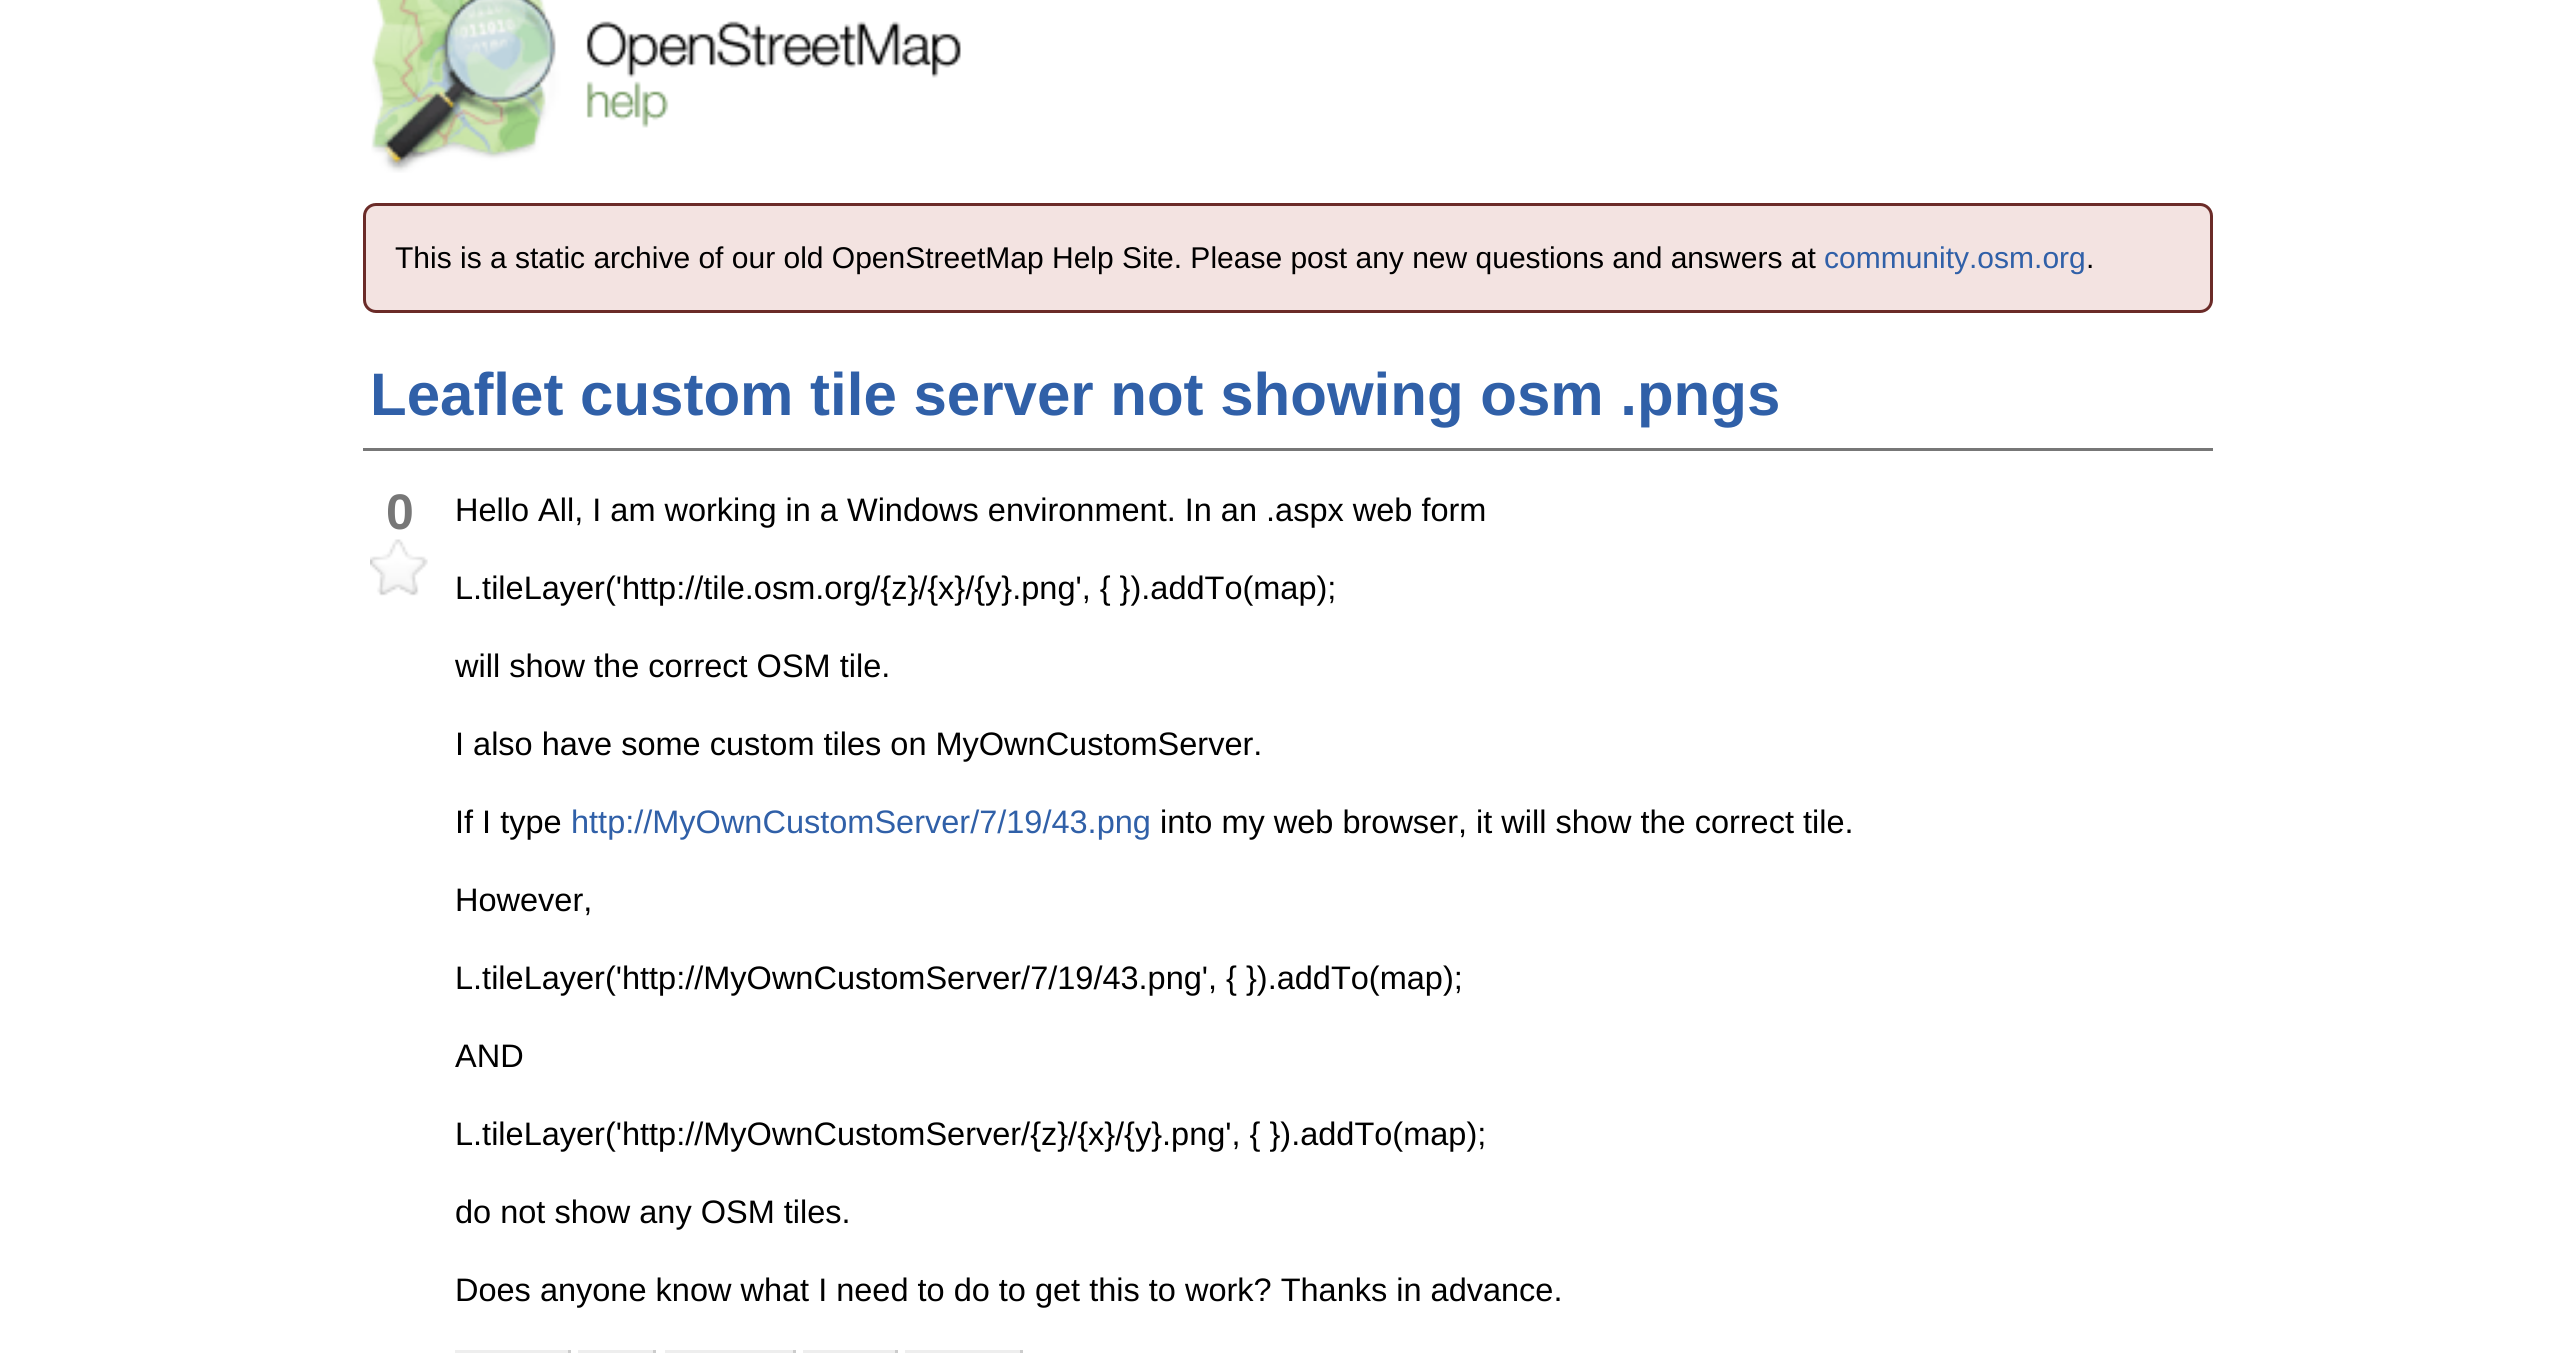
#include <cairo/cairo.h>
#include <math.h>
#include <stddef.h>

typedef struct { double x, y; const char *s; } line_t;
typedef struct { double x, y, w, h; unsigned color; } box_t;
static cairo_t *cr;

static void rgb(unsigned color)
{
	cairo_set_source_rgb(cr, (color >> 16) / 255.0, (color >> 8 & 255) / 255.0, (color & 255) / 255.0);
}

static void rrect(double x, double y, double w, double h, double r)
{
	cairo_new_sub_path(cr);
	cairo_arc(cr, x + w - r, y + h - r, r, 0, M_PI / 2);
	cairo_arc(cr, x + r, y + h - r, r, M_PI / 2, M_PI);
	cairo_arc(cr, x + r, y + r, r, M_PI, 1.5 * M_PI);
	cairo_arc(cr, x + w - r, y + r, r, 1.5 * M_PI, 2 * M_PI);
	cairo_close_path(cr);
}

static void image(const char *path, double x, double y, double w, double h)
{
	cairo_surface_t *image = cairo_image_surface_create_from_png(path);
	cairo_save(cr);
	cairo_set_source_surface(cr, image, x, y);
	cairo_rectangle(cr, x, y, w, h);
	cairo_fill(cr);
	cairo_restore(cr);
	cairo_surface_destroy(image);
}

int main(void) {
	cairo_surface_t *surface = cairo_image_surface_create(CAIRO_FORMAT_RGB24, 2574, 1353);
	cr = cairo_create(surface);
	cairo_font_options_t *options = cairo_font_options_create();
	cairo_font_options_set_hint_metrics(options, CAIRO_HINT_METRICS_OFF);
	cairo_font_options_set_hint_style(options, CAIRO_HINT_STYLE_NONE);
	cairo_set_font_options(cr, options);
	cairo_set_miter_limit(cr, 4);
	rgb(0xffffff);
	cairo_paint(cr);
	image("img/1.png", 371, 0, 590, 173);
	rgb(0xf3e3e1);
	rrect(364.5, 204.5, 1847, 107, 11.5);
	cairo_fill_preserve(cr);
	rgb(0x6b2b28);
	cairo_set_line_width(cr, 3);
	cairo_stroke(cr);
	rgb(0x777777);
	cairo_rectangle(cr, 363, 448, 1850, 3);
	cairo_fill(cr);
	image("img/2.png", 370, 539, 58, 57);
	{
		static const box_t items[] = {
			{455, 1350, 115, 3, 0xeeeeee},
			{568, 1350, 3, 3, 0xcccccc},
			{578, 1350, 77, 3, 0xeeeeee},
			{653, 1350, 3, 3, 0xcccccc},
			{665, 1350, 130, 3, 0xeeeeee},
			{793, 1350, 3, 3, 0xcccccc},
			{803, 1350, 95, 3, 0xeeeeee},
			{895, 1350, 3, 3, 0xcccccc},
			{905, 1350, 118, 3, 0xeeeeee},
			{1020, 1350, 3, 3, 0xcccccc},
		};
		for (size_t i = 0; i < sizeof items / sizeof *items; i++) {
			rgb(items[i].color);
			cairo_rectangle(cr, items[i].x, items[i].y, items[i].w, items[i].h);
			cairo_fill(cr);
		}
	}
	cairo_select_font_face(cr, "Liberation Sans", CAIRO_FONT_SLANT_NORMAL, CAIRO_FONT_WEIGHT_NORMAL);
	cairo_set_font_size(cr, 30);
	rgb(0x000000);
	cairo_move_to(cr, 395, 268);
	cairo_show_text(cr, "This is a static archive of our old OpenStreetMap Help Site. Please post any new questions and answers at");
	rgb(0x3060a8);
	cairo_move_to(cr, 1824, 268);
	cairo_show_text(cr, "community.osm.org");
	rgb(0x000000);
	cairo_move_to(cr, 2086, 268);
	cairo_show_text(cr, ".");
	cairo_select_font_face(cr, "Liberation Sans", CAIRO_FONT_SLANT_NORMAL, CAIRO_FONT_WEIGHT_BOLD);
	cairo_set_font_size(cr, 60);
	rgb(0x3060a8);
	cairo_move_to(cr, 370, 415);
	cairo_show_text(cr, "Leaflet custom tile server not showing osm .pngs");
	cairo_set_font_size(cr, 50);
	rgb(0x777777);
	cairo_move_to(cr, 386, 529);
	cairo_show_text(cr, "0");
	cairo_select_font_face(cr, "Liberation Sans", CAIRO_FONT_SLANT_NORMAL, CAIRO_FONT_WEIGHT_NORMAL);
	cairo_set_font_size(cr, 32.5);
	rgb(0x000000);
	{
		static const line_t items[] = {
			{455, 521, "Hello All, I am working in a Windows environment. In an .aspx web form"},
			{455, 599, "L.tileLayer('http://tile.osm.org/{z}/{x}/{y}.png', { }).addTo(map);"},
			{455, 677, "will show the correct OSM tile."},
			{455, 755, "I also have some custom tiles on MyOwnCustomServer."},
			{455, 833, "If I type"},
		};
		for (size_t i = 0; i < sizeof items / sizeof *items; i++) {
			cairo_move_to(cr, items[i].x, items[i].y);
			cairo_show_text(cr, items[i].s);
		}
	}
	rgb(0x3060a8);
	cairo_move_to(cr, 571, 833);
	cairo_show_text(cr, "http://MyOwnCustomServer/7/19/43.png");
	rgb(0x000000);
	{
		static const line_t items[] = {
			{1160, 833, "into my web browser, it will show the correct tile."},
			{455, 911, "However,"},
			{455, 989, "L.tileLayer('http://MyOwnCustomServer/7/19/43.png', { }).addTo(map);"},
			{455, 1067, "AND"},
			{455, 1145, "L.tileLayer('http://MyOwnCustomServer/{z}/{x}/{y}.png', { }).addTo(map);"},
			{455, 1223, "do not show any OSM tiles."},
			{455, 1301, "Does anyone know what I need to do to get this to work? Thanks in advance."},
		};
		for (size_t i = 0; i < sizeof items / sizeof *items; i++) {
			cairo_move_to(cr, items[i].x, items[i].y);
			cairo_show_text(cr, items[i].s);
		}
	}
	cairo_surface_write_to_png(surface, "page.png");
	cairo_font_options_destroy(options);
	cairo_destroy(cr);
	cairo_surface_destroy(surface);
	return 0;
}
